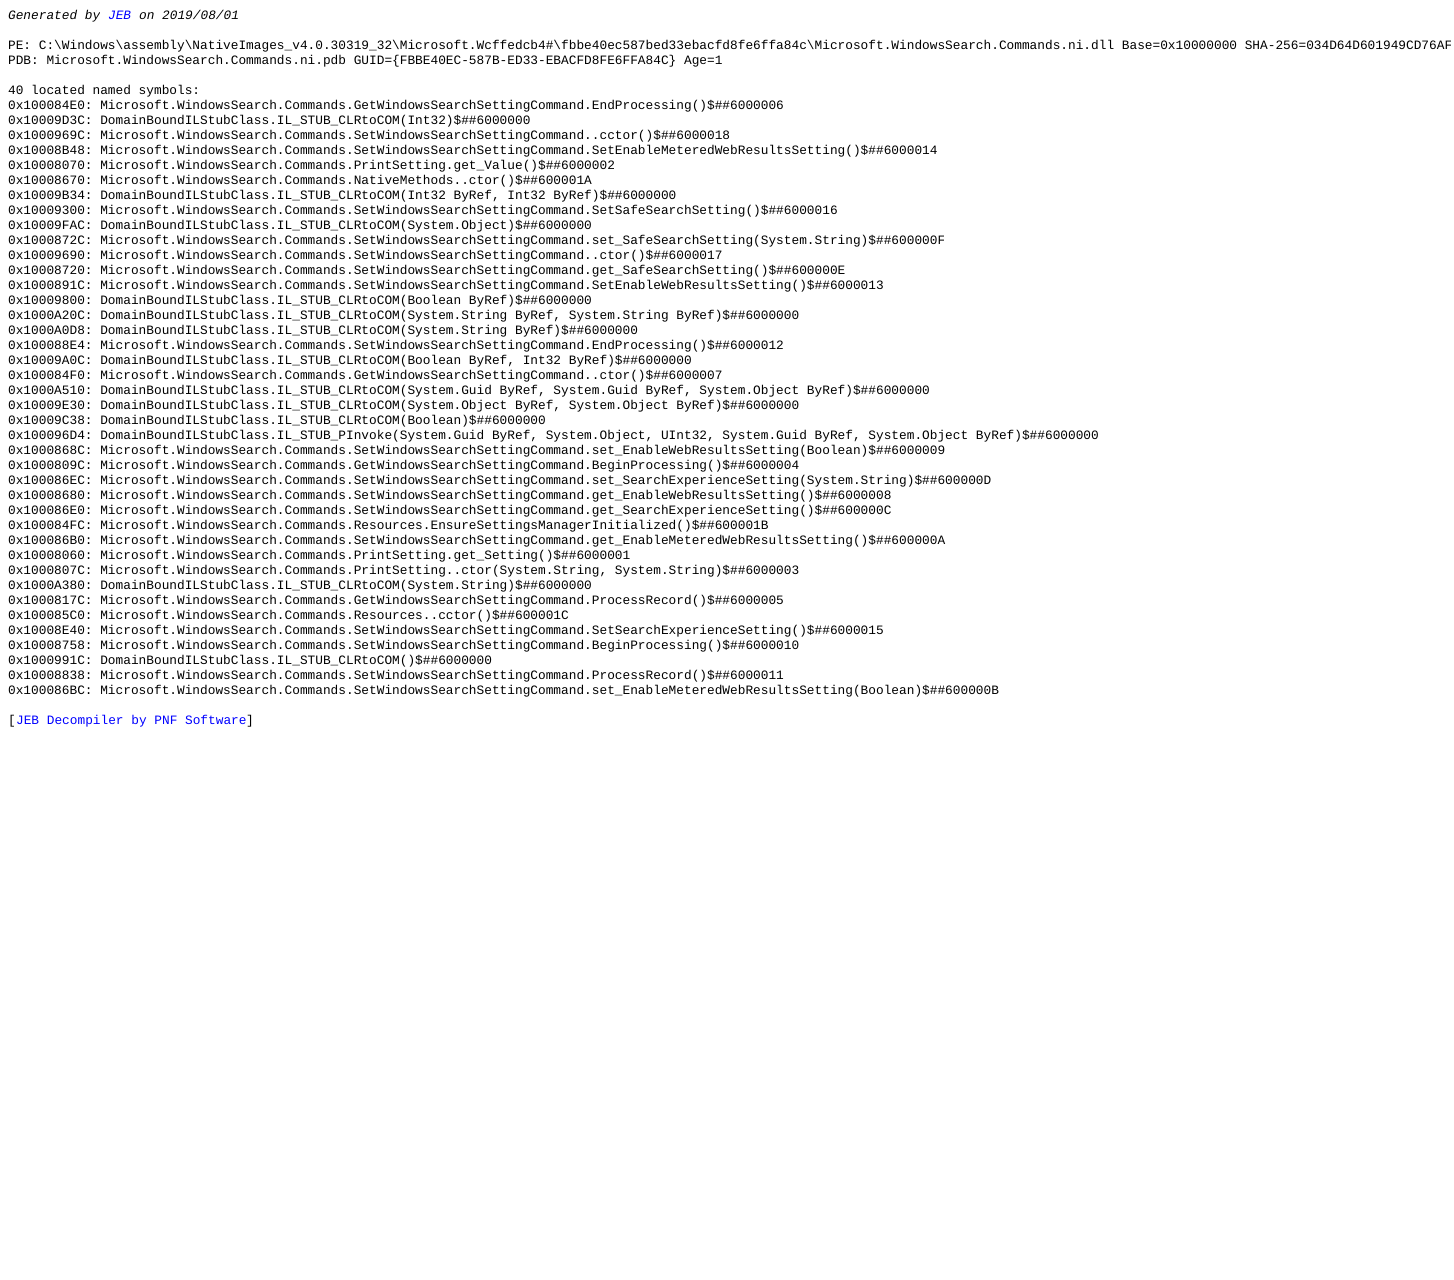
#include <cairo/cairo.h>
#include <math.h>
#include <stddef.h>

typedef struct { double x, y; const char *s; } line_t;
static cairo_t *cr;

static void rgb(unsigned color)
{
	cairo_set_source_rgb(cr, (color >> 16) / 255.0, (color >> 8 & 255) / 255.0, (color & 255) / 255.0);
}

int main(void) {
	cairo_surface_t *surface = cairo_image_surface_create(CAIRO_FORMAT_RGB24, 1454, 1280);
	cr = cairo_create(surface);
	cairo_font_options_t *options = cairo_font_options_create();
	cairo_font_options_set_hint_metrics(options, CAIRO_HINT_METRICS_OFF);
	cairo_font_options_set_hint_style(options, CAIRO_HINT_STYLE_NONE);
	cairo_set_font_options(cr, options);
	cairo_set_miter_limit(cr, 4);
	rgb(0xffffff);
	cairo_paint(cr);
	cairo_select_font_face(cr, "Liberation Mono", CAIRO_FONT_SLANT_ITALIC, CAIRO_FONT_WEIGHT_NORMAL);
	cairo_set_font_size(cr, 12.8);
	rgb(0x000000);
	cairo_move_to(cr, 8, 19);
	cairo_show_text(cr, "Generated by");
	rgb(0x0000ff);
	cairo_move_to(cr, 108, 19);
	cairo_show_text(cr, "JEB");
	rgb(0x000000);
	cairo_move_to(cr, 139, 19);
	cairo_show_text(cr, "on 2019/08/01");
	cairo_select_font_face(cr, "Liberation Mono", CAIRO_FONT_SLANT_NORMAL, CAIRO_FONT_WEIGHT_NORMAL);
	{
		static const line_t items[] = {
			{8, 49, "PE: C:\\Windows\\assembly\\NativeImages_v4.0.30319_32\\Microsoft.Wcffedcb4#\\fbbe40ec587bed33ebacfd8fe6ffa84c\\Microsoft.WindowsSearch.Commands.ni.dll Base=0x10000000 SHA-256=034D64D601949CD76AF"},
			{8, 64, "PDB: Microsoft.WindowsSearch.Commands.ni.pdb GUID={FBBE40EC-587B-ED33-EBACFD8FE6FFA84C} Age=1"},
			{8, 94, "40 located named symbols:"},
			{8, 109, "0x100084E0: Microsoft.WindowsSearch.Commands.GetWindowsSearchSettingCommand.EndProcessing()$##6000006"},
			{8, 124, "0x10009D3C: DomainBoundILStubClass.IL_STUB_CLRtoCOM(Int32)$##6000000"},
			{8, 139, "0x1000969C: Microsoft.WindowsSearch.Commands.SetWindowsSearchSettingCommand..cctor()$##6000018"},
			{8, 154, "0x10008B48: Microsoft.WindowsSearch.Commands.SetWindowsSearchSettingCommand.SetEnableMeteredWebResultsSetting()$##6000014"},
			{8, 169, "0x10008070: Microsoft.WindowsSearch.Commands.PrintSetting.get_Value()$##6000002"},
			{8, 184, "0x10008670: Microsoft.WindowsSearch.Commands.NativeMethods..ctor()$##600001A"},
			{8, 199, "0x10009B34: DomainBoundILStubClass.IL_STUB_CLRtoCOM(Int32 ByRef, Int32 ByRef)$##6000000"},
			{8, 214, "0x10009300: Microsoft.WindowsSearch.Commands.SetWindowsSearchSettingCommand.SetSafeSearchSetting()$##6000016"},
			{8, 229, "0x10009FAC: DomainBoundILStubClass.IL_STUB_CLRtoCOM(System.Object)$##6000000"},
			{8, 244, "0x1000872C: Microsoft.WindowsSearch.Commands.SetWindowsSearchSettingCommand.set_SafeSearchSetting(System.String)$##600000F"},
			{8, 259, "0x10009690: Microsoft.WindowsSearch.Commands.SetWindowsSearchSettingCommand..ctor()$##6000017"},
			{8, 274, "0x10008720: Microsoft.WindowsSearch.Commands.SetWindowsSearchSettingCommand.get_SafeSearchSetting()$##600000E"},
			{8, 289, "0x1000891C: Microsoft.WindowsSearch.Commands.SetWindowsSearchSettingCommand.SetEnableWebResultsSetting()$##6000013"},
			{8, 304, "0x10009800: DomainBoundILStubClass.IL_STUB_CLRtoCOM(Boolean ByRef)$##6000000"},
			{8, 319, "0x1000A20C: DomainBoundILStubClass.IL_STUB_CLRtoCOM(System.String ByRef, System.String ByRef)$##6000000"},
			{8, 334, "0x1000A0D8: DomainBoundILStubClass.IL_STUB_CLRtoCOM(System.String ByRef)$##6000000"},
			{8, 349, "0x100088E4: Microsoft.WindowsSearch.Commands.SetWindowsSearchSettingCommand.EndProcessing()$##6000012"},
			{8, 364, "0x10009A0C: DomainBoundILStubClass.IL_STUB_CLRtoCOM(Boolean ByRef, Int32 ByRef)$##6000000"},
			{8, 379, "0x100084F0: Microsoft.WindowsSearch.Commands.GetWindowsSearchSettingCommand..ctor()$##6000007"},
			{8, 394, "0x1000A510: DomainBoundILStubClass.IL_STUB_CLRtoCOM(System.Guid ByRef, System.Guid ByRef, System.Object ByRef)$##6000000"},
			{8, 409, "0x10009E30: DomainBoundILStubClass.IL_STUB_CLRtoCOM(System.Object ByRef, System.Object ByRef)$##6000000"},
			{8, 424, "0x10009C38: DomainBoundILStubClass.IL_STUB_CLRtoCOM(Boolean)$##6000000"},
			{8, 439, "0x100096D4: DomainBoundILStubClass.IL_STUB_PInvoke(System.Guid ByRef, System.Object, UInt32, System.Guid ByRef, System.Object ByRef)$##6000000"},
			{8, 454, "0x1000868C: Microsoft.WindowsSearch.Commands.SetWindowsSearchSettingCommand.set_EnableWebResultsSetting(Boolean)$##6000009"},
			{8, 469, "0x1000809C: Microsoft.WindowsSearch.Commands.GetWindowsSearchSettingCommand.BeginProcessing()$##6000004"},
			{8, 484, "0x100086EC: Microsoft.WindowsSearch.Commands.SetWindowsSearchSettingCommand.set_SearchExperienceSetting(System.String)$##600000D"},
			{8, 499, "0x10008680: Microsoft.WindowsSearch.Commands.SetWindowsSearchSettingCommand.get_EnableWebResultsSetting()$##6000008"},
			{8, 514, "0x100086E0: Microsoft.WindowsSearch.Commands.SetWindowsSearchSettingCommand.get_SearchExperienceSetting()$##600000C"},
			{8, 529, "0x100084FC: Microsoft.WindowsSearch.Commands.Resources.EnsureSettingsManagerInitialized()$##600001B"},
			{8, 544, "0x100086B0: Microsoft.WindowsSearch.Commands.SetWindowsSearchSettingCommand.get_EnableMeteredWebResultsSetting()$##600000A"},
			{8, 559, "0x10008060: Microsoft.WindowsSearch.Commands.PrintSetting.get_Setting()$##6000001"},
			{8, 574, "0x1000807C: Microsoft.WindowsSearch.Commands.PrintSetting..ctor(System.String, System.String)$##6000003"},
			{8, 589, "0x1000A380: DomainBoundILStubClass.IL_STUB_CLRtoCOM(System.String)$##6000000"},
			{8, 604, "0x1000817C: Microsoft.WindowsSearch.Commands.GetWindowsSearchSettingCommand.ProcessRecord()$##6000005"},
			{8, 619, "0x100085C0: Microsoft.WindowsSearch.Commands.Resources..cctor()$##600001C"},
			{8, 634, "0x10008E40: Microsoft.WindowsSearch.Commands.SetWindowsSearchSettingCommand.SetSearchExperienceSetting()$##6000015"},
			{8, 649, "0x10008758: Microsoft.WindowsSearch.Commands.SetWindowsSearchSettingCommand.BeginProcessing()$##6000010"},
			{8, 664, "0x1000991C: DomainBoundILStubClass.IL_STUB_CLRtoCOM()$##6000000"},
			{8, 679, "0x10008838: Microsoft.WindowsSearch.Commands.SetWindowsSearchSettingCommand.ProcessRecord()$##6000011"},
			{8, 694, "0x100086BC: Microsoft.WindowsSearch.Commands.SetWindowsSearchSettingCommand.set_EnableMeteredWebResultsSetting(Boolean)$##600000B"},
			{8, 724, "["},
		};
		for (size_t i = 0; i < sizeof items / sizeof *items; i++) {
			cairo_move_to(cr, items[i].x, items[i].y);
			cairo_show_text(cr, items[i].s);
		}
	}
	rgb(0x0000ff);
	cairo_move_to(cr, 16, 724);
	cairo_show_text(cr, "JEB Decompiler by PNF Software");
	rgb(0x000000);
	cairo_move_to(cr, 246, 724);
	cairo_show_text(cr, "]");
	cairo_surface_write_to_png(surface, "page.png");
	cairo_font_options_destroy(options);
	cairo_destroy(cr);
	cairo_surface_destroy(surface);
	return 0;
}
